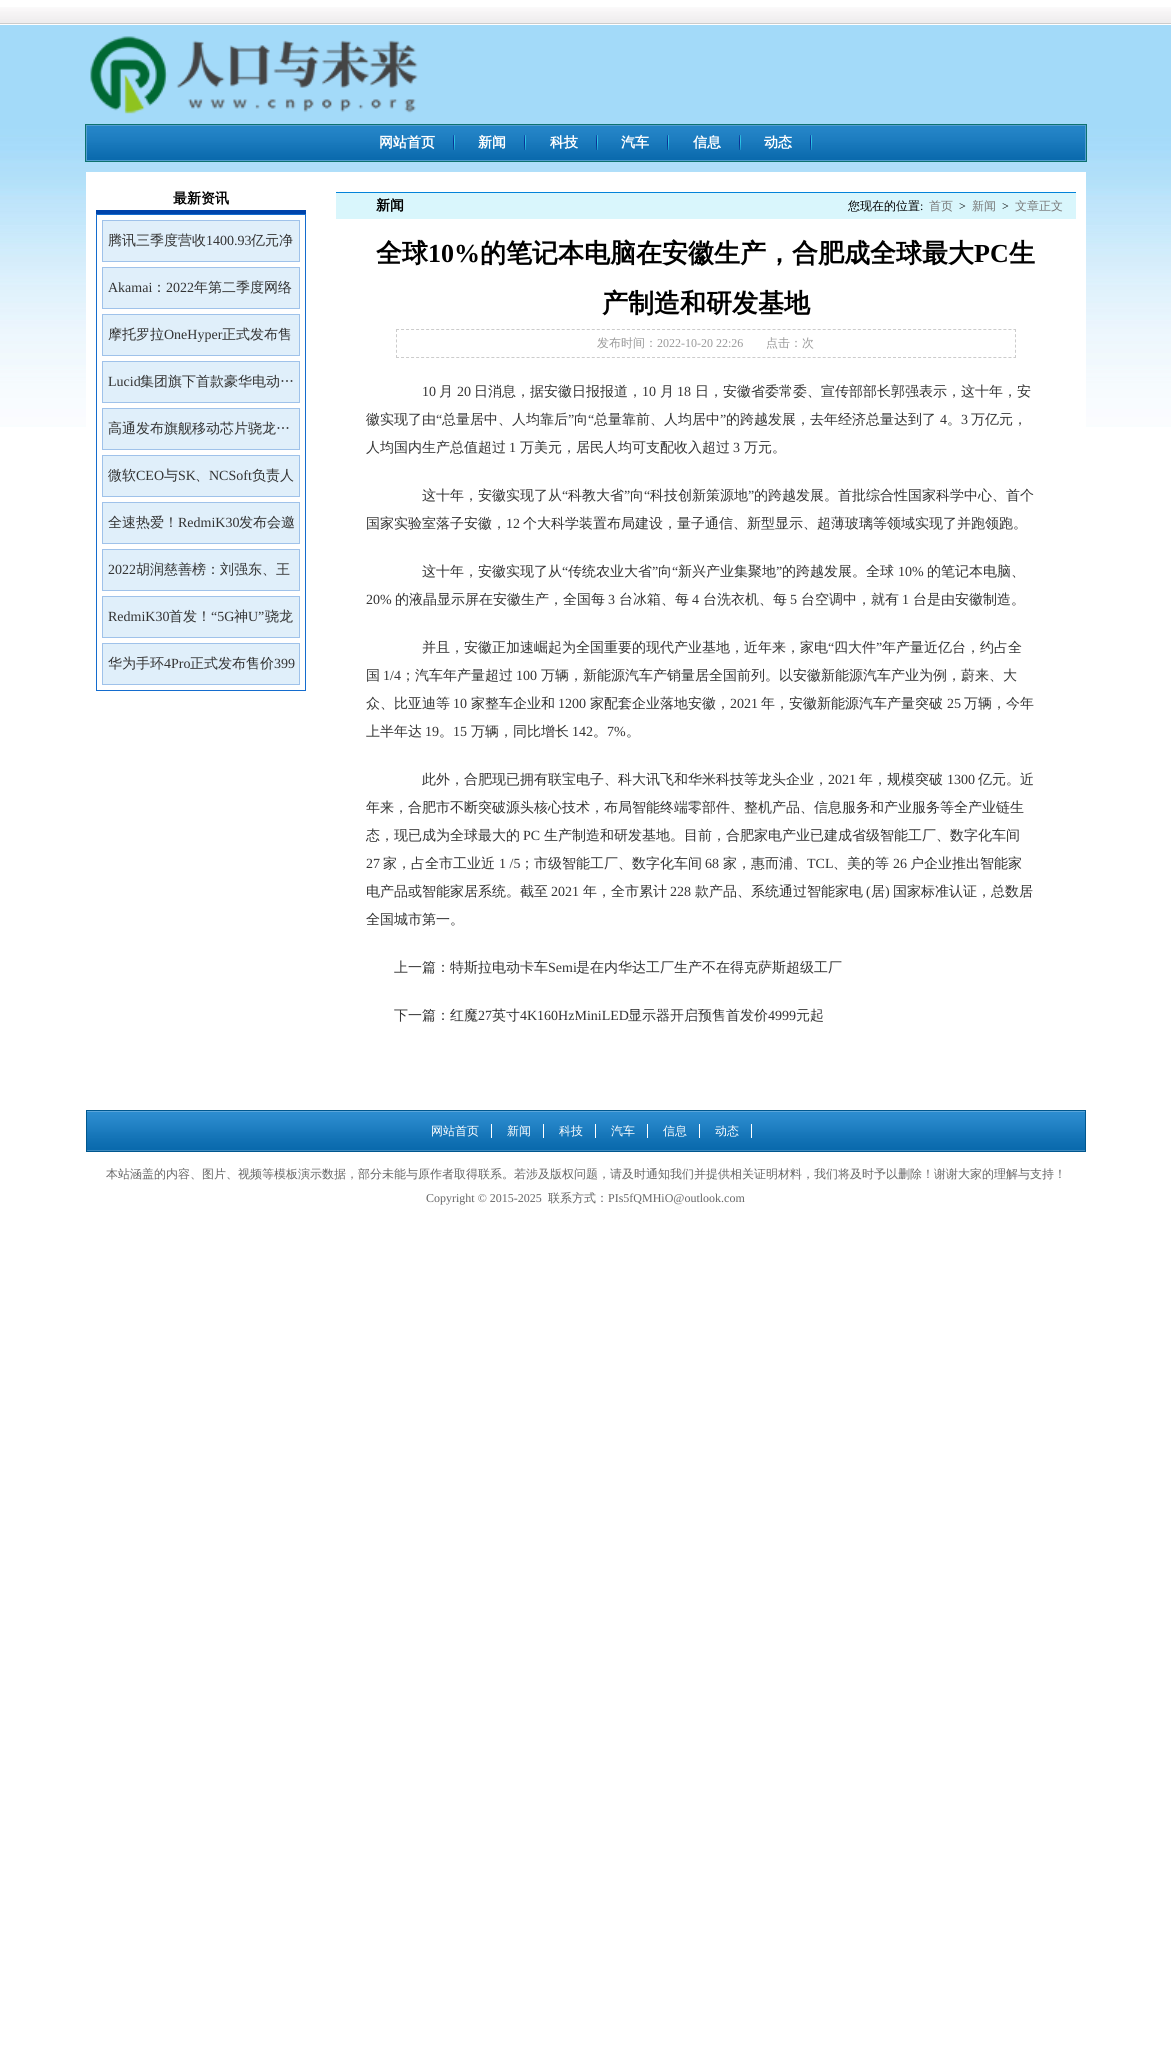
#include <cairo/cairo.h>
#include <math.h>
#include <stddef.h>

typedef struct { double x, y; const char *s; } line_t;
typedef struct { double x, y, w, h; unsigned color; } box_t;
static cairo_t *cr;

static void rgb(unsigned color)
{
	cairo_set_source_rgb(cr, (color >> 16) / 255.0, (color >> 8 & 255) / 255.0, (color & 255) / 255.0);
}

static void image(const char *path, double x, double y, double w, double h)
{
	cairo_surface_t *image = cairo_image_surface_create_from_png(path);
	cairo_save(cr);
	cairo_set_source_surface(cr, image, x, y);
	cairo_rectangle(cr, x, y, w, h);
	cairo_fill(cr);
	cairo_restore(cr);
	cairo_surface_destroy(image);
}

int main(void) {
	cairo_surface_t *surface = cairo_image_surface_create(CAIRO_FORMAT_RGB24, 1171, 2045);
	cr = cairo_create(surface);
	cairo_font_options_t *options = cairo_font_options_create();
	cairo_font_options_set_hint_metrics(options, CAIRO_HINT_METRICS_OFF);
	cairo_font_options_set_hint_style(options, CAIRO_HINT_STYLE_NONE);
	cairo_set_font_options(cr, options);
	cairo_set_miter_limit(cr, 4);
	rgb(0xffffff);
	cairo_paint(cr);
	image("img/1.png", 0, 25, 1171, 402);
	image("img/2.png", 0, 7, 1171, 16);
	rgb(0xcccccc);
	cairo_rectangle(cr, 0, 23, 1171, 1);
	cairo_fill(cr);
	image("img/3.png", 90, 36, 328, 78);
	image("img/4.png", 87, 126, 998, 34);
	cairo_rectangle(cr, 85.5, 124.5, 1001, 37);
	rgb(0x0d726e);
	cairo_set_line_width(cr, 1);
	cairo_stroke(cr);
	cairo_rectangle(cr, 86.5, 125.5, 999, 35);
	rgb(0x539dcf);
	cairo_stroke(cr);
	image("img/5.png", 453, 135, 2, 15);
	image("img/5.png", 524, 135, 2, 15);
	image("img/5.png", 596, 135, 2, 15);
	image("img/5.png", 667, 135, 2, 15);
	image("img/5.png", 739, 135, 2, 15);
	image("img/5.png", 810, 135, 2, 15);
	rgb(0xffffff);
	cairo_rectangle(cr, 86, 172, 1000, 255);
	cairo_fill(cr);
	rgb(0x0044ab);
	cairo_rectangle(cr, 96, 210, 210, 4);
	cairo_fill(cr);
	cairo_rectangle(cr, 96.5, 214.5, 209, 476);
	rgb(0x146cce);
	cairo_stroke(cr);
	rgb(0xe0effa);
	cairo_rectangle(cr, 102.5, 220.5, 197, 41);
	cairo_fill_preserve(cr);
	rgb(0x9fc2ea);
	cairo_stroke(cr);
	rgb(0xe0effa);
	cairo_rectangle(cr, 102.5, 267.5, 197, 41);
	cairo_fill_preserve(cr);
	rgb(0x9fc2ea);
	cairo_stroke(cr);
	rgb(0xe0effa);
	cairo_rectangle(cr, 102.5, 314.5, 197, 41);
	cairo_fill_preserve(cr);
	rgb(0x9fc2ea);
	cairo_stroke(cr);
	rgb(0xe0effa);
	cairo_rectangle(cr, 102.5, 361.5, 197, 41);
	cairo_fill_preserve(cr);
	rgb(0x9fc2ea);
	cairo_stroke(cr);
	rgb(0xe0effa);
	cairo_rectangle(cr, 102.5, 408.5, 197, 41);
	cairo_fill_preserve(cr);
	rgb(0x9fc2ea);
	cairo_stroke(cr);
	rgb(0xe0effa);
	cairo_rectangle(cr, 102.5, 455.5, 197, 41);
	cairo_fill_preserve(cr);
	rgb(0x9fc2ea);
	cairo_stroke(cr);
	rgb(0xe0effa);
	cairo_rectangle(cr, 102.5, 502.5, 197, 41);
	cairo_fill_preserve(cr);
	rgb(0x9fc2ea);
	cairo_stroke(cr);
	rgb(0xe0effa);
	cairo_rectangle(cr, 102.5, 549.5, 197, 41);
	cairo_fill_preserve(cr);
	rgb(0x9fc2ea);
	cairo_stroke(cr);
	rgb(0xe0effa);
	cairo_rectangle(cr, 102.5, 596.5, 197, 41);
	cairo_fill_preserve(cr);
	rgb(0x9fc2ea);
	cairo_stroke(cr);
	rgb(0xe0effa);
	cairo_rectangle(cr, 102.5, 643.5, 197, 41);
	cairo_fill_preserve(cr);
	rgb(0x9fc2ea);
	cairo_stroke(cr);
	rgb(0xd9f6fc);
	cairo_rectangle(cr, 336, 193, 740, 26);
	cairo_fill(cr);
	rgb(0x0383d9);
	cairo_rectangle(cr, 336, 192, 740, 1);
	cairo_fill(cr);
	cairo_new_path(cr);
	cairo_move_to(cr, 396, 329.5);
	cairo_line_to(cr, 1016, 329.5);
	rgb(0xcccccc);
	cairo_set_dash(cr, (double[]){3, 2.02}, 2, 0);
	cairo_stroke(cr);
	cairo_new_path(cr);
	cairo_move_to(cr, 1015.5, 329);
	cairo_line_to(cr, 1015.5, 358);
	cairo_set_dash(cr, (double[]){3, 2.2}, 2, 0);
	cairo_stroke(cr);
	cairo_new_path(cr);
	cairo_move_to(cr, 396, 357.5);
	cairo_line_to(cr, 1016, 357.5);
	cairo_set_dash(cr, (double[]){3, 2.02}, 2, 0);
	cairo_stroke(cr);
	cairo_new_path(cr);
	cairo_move_to(cr, 396.5, 329);
	cairo_line_to(cr, 396.5, 358);
	cairo_set_dash(cr, (double[]){3, 2.2}, 2, 0);
	cairo_stroke(cr);
	image("img/6.png", 87, 1111, 998, 40);
	cairo_rectangle(cr, 86.5, 1110.5, 999, 41);
	rgb(0x00578e);
	cairo_set_dash(cr, NULL, 0, 0);
	cairo_stroke(cr);
	{
		static const box_t items[] = {
			{491, 1124, 1, 14, 0xffffff},
			{543, 1124, 1, 14, 0xffffff},
			{595, 1124, 1, 14, 0xffffff},
			{647, 1124, 1, 14, 0xffffff},
			{699, 1124, 1, 14, 0xffffff},
			{751, 1124, 1, 14, 0xffffff},
		};
		for (size_t i = 0; i < sizeof items / sizeof *items; i++) {
			rgb(items[i].color);
			cairo_rectangle(cr, items[i].x, items[i].y, items[i].w, items[i].h);
			cairo_fill(cr);
		}
	}
	cairo_select_font_face(cr, "WenQuanYi Zen Hei", CAIRO_FONT_SLANT_NORMAL, CAIRO_FONT_WEIGHT_BOLD);
	cairo_set_font_size(cr, 14);
	{
		static const line_t items[] = {
			{379, 147, "网站首页"},
			{478, 147, "新闻"},
			{550, 147, "科技"},
			{621, 147, "汽车"},
			{693, 147, "信息"},
			{764, 147, "动态"},
		};
		for (size_t i = 0; i < sizeof items / sizeof *items; i++) {
			cairo_move_to(cr, items[i].x, items[i].y);
			cairo_show_text(cr, items[i].s);
		}
	}
	rgb(0x000000);
	cairo_move_to(cr, 173, 203);
	cairo_show_text(cr, "最新资讯");
	cairo_select_font_face(cr, "WenQuanYi Zen Hei Medium", CAIRO_FONT_SLANT_NORMAL, CAIRO_FONT_WEIGHT_NORMAL);
	rgb(0x333333);
	cairo_move_to(cr, 108, 245);
	cairo_show_text(cr, "腾讯三季度营收");
	cairo_select_font_face(cr, "Liberation Serif", CAIRO_FONT_SLANT_NORMAL, CAIRO_FONT_WEIGHT_NORMAL);
	cairo_move_to(cr, 206, 245);
	cairo_show_text(cr, "1400.93");
	cairo_select_font_face(cr, "WenQuanYi Zen Hei Medium", CAIRO_FONT_SLANT_NORMAL, CAIRO_FONT_WEIGHT_NORMAL);
	cairo_move_to(cr, 251, 245);
	cairo_show_text(cr, "亿元净");
	cairo_select_font_face(cr, "Liberation Serif", CAIRO_FONT_SLANT_NORMAL, CAIRO_FONT_WEIGHT_NORMAL);
	cairo_move_to(cr, 108, 292);
	cairo_show_text(cr, "Akamai");
	cairo_select_font_face(cr, "WenQuanYi Zen Hei Medium", CAIRO_FONT_SLANT_NORMAL, CAIRO_FONT_WEIGHT_NORMAL);
	cairo_move_to(cr, 152, 292);
	cairo_show_text(cr, "：");
	cairo_select_font_face(cr, "Liberation Serif", CAIRO_FONT_SLANT_NORMAL, CAIRO_FONT_WEIGHT_NORMAL);
	cairo_move_to(cr, 166, 292);
	cairo_show_text(cr, "2022");
	cairo_select_font_face(cr, "WenQuanYi Zen Hei Medium", CAIRO_FONT_SLANT_NORMAL, CAIRO_FONT_WEIGHT_NORMAL);
	cairo_move_to(cr, 194, 292);
	cairo_show_text(cr, "年第二季度网络");
	cairo_move_to(cr, 108, 339);
	cairo_show_text(cr, "摩托罗拉");
	cairo_select_font_face(cr, "Liberation Serif", CAIRO_FONT_SLANT_NORMAL, CAIRO_FONT_WEIGHT_NORMAL);
	cairo_move_to(cr, 164, 339);
	cairo_show_text(cr, "OneHyper");
	cairo_select_font_face(cr, "WenQuanYi Zen Hei Medium", CAIRO_FONT_SLANT_NORMAL, CAIRO_FONT_WEIGHT_NORMAL);
	cairo_move_to(cr, 222, 339);
	cairo_show_text(cr, "正式发布售");
	cairo_select_font_face(cr, "Liberation Serif", CAIRO_FONT_SLANT_NORMAL, CAIRO_FONT_WEIGHT_NORMAL);
	cairo_move_to(cr, 108, 386);
	cairo_show_text(cr, "Lucid");
	cairo_select_font_face(cr, "WenQuanYi Zen Hei Medium", CAIRO_FONT_SLANT_NORMAL, CAIRO_FONT_WEIGHT_NORMAL);
	{
		static const line_t items[] = {
			{140, 386, "集团旗下首款豪华电动…"},
			{108, 433, "高通发布旗舰移动芯片骁龙…"},
			{108, 480, "微软"},
		};
		for (size_t i = 0; i < sizeof items / sizeof *items; i++) {
			cairo_move_to(cr, items[i].x, items[i].y);
			cairo_show_text(cr, items[i].s);
		}
	}
	cairo_select_font_face(cr, "Liberation Serif", CAIRO_FONT_SLANT_NORMAL, CAIRO_FONT_WEIGHT_NORMAL);
	cairo_move_to(cr, 136, 480);
	cairo_show_text(cr, "CEO");
	cairo_select_font_face(cr, "WenQuanYi Zen Hei Medium", CAIRO_FONT_SLANT_NORMAL, CAIRO_FONT_WEIGHT_NORMAL);
	cairo_move_to(cr, 164, 480);
	cairo_show_text(cr, "与");
	cairo_select_font_face(cr, "Liberation Serif", CAIRO_FONT_SLANT_NORMAL, CAIRO_FONT_WEIGHT_NORMAL);
	cairo_move_to(cr, 178, 480);
	cairo_show_text(cr, "SK");
	cairo_select_font_face(cr, "WenQuanYi Zen Hei Medium", CAIRO_FONT_SLANT_NORMAL, CAIRO_FONT_WEIGHT_NORMAL);
	cairo_move_to(cr, 195, 480);
	cairo_show_text(cr, "、");
	cairo_select_font_face(cr, "Liberation Serif", CAIRO_FONT_SLANT_NORMAL, CAIRO_FONT_WEIGHT_NORMAL);
	cairo_move_to(cr, 209, 480);
	cairo_show_text(cr, "NCSoft");
	cairo_select_font_face(cr, "WenQuanYi Zen Hei Medium", CAIRO_FONT_SLANT_NORMAL, CAIRO_FONT_WEIGHT_NORMAL);
	cairo_move_to(cr, 252, 480);
	cairo_show_text(cr, "负责人");
	cairo_move_to(cr, 108, 527);
	cairo_show_text(cr, "全速热爱！");
	cairo_select_font_face(cr, "Liberation Serif", CAIRO_FONT_SLANT_NORMAL, CAIRO_FONT_WEIGHT_NORMAL);
	cairo_move_to(cr, 178, 527);
	cairo_show_text(cr, "RedmiK30");
	cairo_select_font_face(cr, "WenQuanYi Zen Hei Medium", CAIRO_FONT_SLANT_NORMAL, CAIRO_FONT_WEIGHT_NORMAL);
	cairo_move_to(cr, 239, 527);
	cairo_show_text(cr, "发布会邀");
	cairo_select_font_face(cr, "Liberation Serif", CAIRO_FONT_SLANT_NORMAL, CAIRO_FONT_WEIGHT_NORMAL);
	cairo_move_to(cr, 108, 574);
	cairo_show_text(cr, "2022");
	cairo_select_font_face(cr, "WenQuanYi Zen Hei Medium", CAIRO_FONT_SLANT_NORMAL, CAIRO_FONT_WEIGHT_NORMAL);
	cairo_move_to(cr, 136, 574);
	cairo_show_text(cr, "胡润慈善榜：刘强东、王");
	cairo_select_font_face(cr, "Liberation Serif", CAIRO_FONT_SLANT_NORMAL, CAIRO_FONT_WEIGHT_NORMAL);
	cairo_move_to(cr, 108, 621);
	cairo_show_text(cr, "RedmiK30");
	cairo_select_font_face(cr, "WenQuanYi Zen Hei Medium", CAIRO_FONT_SLANT_NORMAL, CAIRO_FONT_WEIGHT_NORMAL);
	cairo_move_to(cr, 169, 621);
	cairo_show_text(cr, "首发！");
	cairo_select_font_face(cr, "Liberation Serif", CAIRO_FONT_SLANT_NORMAL, CAIRO_FONT_WEIGHT_NORMAL);
	cairo_move_to(cr, 211, 621);
	cairo_show_text(cr, "“5G");
	cairo_select_font_face(cr, "WenQuanYi Zen Hei Medium", CAIRO_FONT_SLANT_NORMAL, CAIRO_FONT_WEIGHT_NORMAL);
	cairo_move_to(cr, 234, 621);
	cairo_show_text(cr, "神");
	cairo_select_font_face(cr, "Liberation Serif", CAIRO_FONT_SLANT_NORMAL, CAIRO_FONT_WEIGHT_NORMAL);
	cairo_move_to(cr, 248, 621);
	cairo_show_text(cr, "U”");
	cairo_select_font_face(cr, "WenQuanYi Zen Hei Medium", CAIRO_FONT_SLANT_NORMAL, CAIRO_FONT_WEIGHT_NORMAL);
	cairo_move_to(cr, 265, 621);
	cairo_show_text(cr, "骁龙");
	cairo_move_to(cr, 108, 668);
	cairo_show_text(cr, "华为手环");
	cairo_select_font_face(cr, "Liberation Serif", CAIRO_FONT_SLANT_NORMAL, CAIRO_FONT_WEIGHT_NORMAL);
	cairo_move_to(cr, 164, 668);
	cairo_show_text(cr, "4Pro");
	cairo_select_font_face(cr, "WenQuanYi Zen Hei Medium", CAIRO_FONT_SLANT_NORMAL, CAIRO_FONT_WEIGHT_NORMAL);
	cairo_move_to(cr, 190, 668);
	cairo_show_text(cr, "正式发布售价");
	cairo_select_font_face(cr, "Liberation Serif", CAIRO_FONT_SLANT_NORMAL, CAIRO_FONT_WEIGHT_NORMAL);
	cairo_move_to(cr, 274, 668);
	cairo_show_text(cr, "399");
	cairo_select_font_face(cr, "WenQuanYi Zen Hei", CAIRO_FONT_SLANT_NORMAL, CAIRO_FONT_WEIGHT_BOLD);
	rgb(0x000000);
	cairo_move_to(cr, 376, 210);
	cairo_show_text(cr, "新闻");
	cairo_select_font_face(cr, "WenQuanYi Zen Hei Medium", CAIRO_FONT_SLANT_NORMAL, CAIRO_FONT_WEIGHT_NORMAL);
	cairo_set_font_size(cr, 12);
	cairo_move_to(cr, 848, 210);
	cairo_show_text(cr, "您现在的位置");
	cairo_select_font_face(cr, "Liberation Serif", CAIRO_FONT_SLANT_NORMAL, CAIRO_FONT_WEIGHT_NORMAL);
	cairo_move_to(cr, 920, 210);
	cairo_show_text(cr, ":");
	cairo_select_font_face(cr, "WenQuanYi Zen Hei Medium", CAIRO_FONT_SLANT_NORMAL, CAIRO_FONT_WEIGHT_NORMAL);
	rgb(0x777777);
	cairo_move_to(cr, 929, 210);
	cairo_show_text(cr, "首页");
	cairo_select_font_face(cr, "Liberation Serif", CAIRO_FONT_SLANT_NORMAL, CAIRO_FONT_WEIGHT_NORMAL);
	rgb(0x000000);
	cairo_move_to(cr, 959, 210);
	cairo_show_text(cr, ">");
	cairo_select_font_face(cr, "WenQuanYi Zen Hei Medium", CAIRO_FONT_SLANT_NORMAL, CAIRO_FONT_WEIGHT_NORMAL);
	rgb(0x777777);
	cairo_move_to(cr, 972, 210);
	cairo_show_text(cr, "新闻");
	cairo_select_font_face(cr, "Liberation Serif", CAIRO_FONT_SLANT_NORMAL, CAIRO_FONT_WEIGHT_NORMAL);
	rgb(0x000000);
	cairo_move_to(cr, 1002, 210);
	cairo_show_text(cr, ">");
	cairo_select_font_face(cr, "WenQuanYi Zen Hei Medium", CAIRO_FONT_SLANT_NORMAL, CAIRO_FONT_WEIGHT_NORMAL);
	rgb(0x777777);
	cairo_move_to(cr, 1015, 210);
	cairo_show_text(cr, "文章正文");
	cairo_select_font_face(cr, "WenQuanYi Zen Hei", CAIRO_FONT_SLANT_NORMAL, CAIRO_FONT_WEIGHT_BOLD);
	cairo_set_font_size(cr, 26);
	rgb(0x000000);
	cairo_move_to(cr, 376, 262);
	cairo_show_text(cr, "全球");
	cairo_select_font_face(cr, "Liberation Serif", CAIRO_FONT_SLANT_NORMAL, CAIRO_FONT_WEIGHT_BOLD);
	cairo_move_to(cr, 428, 262);
	cairo_show_text(cr, "10%");
	cairo_select_font_face(cr, "WenQuanYi Zen Hei", CAIRO_FONT_SLANT_NORMAL, CAIRO_FONT_WEIGHT_BOLD);
	cairo_move_to(cr, 480, 262);
	cairo_show_text(cr, "的笔记本电脑在安徽生产，合肥成全球最大");
	cairo_select_font_face(cr, "Liberation Serif", CAIRO_FONT_SLANT_NORMAL, CAIRO_FONT_WEIGHT_BOLD);
	cairo_move_to(cr, 974, 262);
	cairo_show_text(cr, "PC");
	cairo_select_font_face(cr, "WenQuanYi Zen Hei", CAIRO_FONT_SLANT_NORMAL, CAIRO_FONT_WEIGHT_BOLD);
	cairo_move_to(cr, 1009, 262);
	cairo_show_text(cr, "生");
	cairo_move_to(cr, 602, 312);
	cairo_show_text(cr, "产制造和研发基地");
	cairo_select_font_face(cr, "WenQuanYi Zen Hei Medium", CAIRO_FONT_SLANT_NORMAL, CAIRO_FONT_WEIGHT_NORMAL);
	cairo_set_font_size(cr, 12);
	rgb(0x999999);
	cairo_move_to(cr, 597, 347);
	cairo_show_text(cr, "发布时间：");
	cairo_select_font_face(cr, "Liberation Serif", CAIRO_FONT_SLANT_NORMAL, CAIRO_FONT_WEIGHT_NORMAL);
	cairo_move_to(cr, 657, 347);
	cairo_show_text(cr, "2022-10-20 22:26");
	cairo_select_font_face(cr, "WenQuanYi Zen Hei Medium", CAIRO_FONT_SLANT_NORMAL, CAIRO_FONT_WEIGHT_NORMAL);
	cairo_move_to(cr, 766, 347);
	cairo_show_text(cr, "点击：次");
	cairo_select_font_face(cr, "Liberation Serif", CAIRO_FONT_SLANT_NORMAL, CAIRO_FONT_WEIGHT_NORMAL);
	cairo_set_font_size(cr, 14);
	rgb(0x333333);
	cairo_move_to(cr, 422, 396);
	cairo_show_text(cr, "10");
	cairo_select_font_face(cr, "WenQuanYi Zen Hei Medium", CAIRO_FONT_SLANT_NORMAL, CAIRO_FONT_WEIGHT_NORMAL);
	cairo_move_to(cr, 439, 396);
	cairo_show_text(cr, "月");
	cairo_select_font_face(cr, "Liberation Serif", CAIRO_FONT_SLANT_NORMAL, CAIRO_FONT_WEIGHT_NORMAL);
	cairo_move_to(cr, 457, 396);
	cairo_show_text(cr, "20");
	cairo_select_font_face(cr, "WenQuanYi Zen Hei Medium", CAIRO_FONT_SLANT_NORMAL, CAIRO_FONT_WEIGHT_NORMAL);
	cairo_move_to(cr, 474, 396);
	cairo_show_text(cr, "日消息，据安徽日报报道，");
	cairo_select_font_face(cr, "Liberation Serif", CAIRO_FONT_SLANT_NORMAL, CAIRO_FONT_WEIGHT_NORMAL);
	cairo_move_to(cr, 642, 396);
	cairo_show_text(cr, "10");
	cairo_select_font_face(cr, "WenQuanYi Zen Hei Medium", CAIRO_FONT_SLANT_NORMAL, CAIRO_FONT_WEIGHT_NORMAL);
	cairo_move_to(cr, 660, 396);
	cairo_show_text(cr, "月");
	cairo_select_font_face(cr, "Liberation Serif", CAIRO_FONT_SLANT_NORMAL, CAIRO_FONT_WEIGHT_NORMAL);
	cairo_move_to(cr, 677, 396);
	cairo_show_text(cr, "18");
	cairo_select_font_face(cr, "WenQuanYi Zen Hei Medium", CAIRO_FONT_SLANT_NORMAL, CAIRO_FONT_WEIGHT_NORMAL);
	cairo_move_to(cr, 695, 396);
	cairo_show_text(cr, "日，安徽省委常委、宣传部部长郭强表示，这十年，安");
	cairo_move_to(cr, 366, 424);
	cairo_show_text(cr, "徽实现了由");
	cairo_select_font_face(cr, "Liberation Serif", CAIRO_FONT_SLANT_NORMAL, CAIRO_FONT_WEIGHT_NORMAL);
	cairo_move_to(cr, 436, 424);
	cairo_show_text(cr, "“");
	cairo_select_font_face(cr, "WenQuanYi Zen Hei Medium", CAIRO_FONT_SLANT_NORMAL, CAIRO_FONT_WEIGHT_NORMAL);
	cairo_move_to(cr, 442, 424);
	cairo_show_text(cr, "总量居中、人均靠后");
	cairo_select_font_face(cr, "Liberation Serif", CAIRO_FONT_SLANT_NORMAL, CAIRO_FONT_WEIGHT_NORMAL);
	cairo_move_to(cr, 568, 424);
	cairo_show_text(cr, "”");
	cairo_select_font_face(cr, "WenQuanYi Zen Hei Medium", CAIRO_FONT_SLANT_NORMAL, CAIRO_FONT_WEIGHT_NORMAL);
	cairo_move_to(cr, 574, 424);
	cairo_show_text(cr, "向");
	cairo_select_font_face(cr, "Liberation Serif", CAIRO_FONT_SLANT_NORMAL, CAIRO_FONT_WEIGHT_NORMAL);
	cairo_move_to(cr, 588, 424);
	cairo_show_text(cr, "“");
	cairo_select_font_face(cr, "WenQuanYi Zen Hei Medium", CAIRO_FONT_SLANT_NORMAL, CAIRO_FONT_WEIGHT_NORMAL);
	cairo_move_to(cr, 594, 424);
	cairo_show_text(cr, "总量靠前、人均居中");
	cairo_select_font_face(cr, "Liberation Serif", CAIRO_FONT_SLANT_NORMAL, CAIRO_FONT_WEIGHT_NORMAL);
	cairo_move_to(cr, 720, 424);
	cairo_show_text(cr, "”");
	cairo_select_font_face(cr, "WenQuanYi Zen Hei Medium", CAIRO_FONT_SLANT_NORMAL, CAIRO_FONT_WEIGHT_NORMAL);
	cairo_move_to(cr, 726, 424);
	cairo_show_text(cr, "的跨越发展，去年经济总量达到了");
	cairo_select_font_face(cr, "Liberation Serif", CAIRO_FONT_SLANT_NORMAL, CAIRO_FONT_WEIGHT_NORMAL);
	cairo_move_to(cr, 940, 424);
	cairo_show_text(cr, "4");
	cairo_select_font_face(cr, "WenQuanYi Zen Hei Medium", CAIRO_FONT_SLANT_NORMAL, CAIRO_FONT_WEIGHT_NORMAL);
	cairo_move_to(cr, 947, 424);
	cairo_show_text(cr, "。");
	cairo_select_font_face(cr, "Liberation Serif", CAIRO_FONT_SLANT_NORMAL, CAIRO_FONT_WEIGHT_NORMAL);
	cairo_move_to(cr, 961, 424);
	cairo_show_text(cr, "3");
	cairo_select_font_face(cr, "WenQuanYi Zen Hei Medium", CAIRO_FONT_SLANT_NORMAL, CAIRO_FONT_WEIGHT_NORMAL);
	cairo_move_to(cr, 971, 424);
	cairo_show_text(cr, "万亿元，");
	cairo_move_to(cr, 366, 452);
	cairo_show_text(cr, "人均国内生产总值超过");
	cairo_select_font_face(cr, "Liberation Serif", CAIRO_FONT_SLANT_NORMAL, CAIRO_FONT_WEIGHT_NORMAL);
	cairo_move_to(cr, 509, 452);
	cairo_show_text(cr, "1");
	cairo_select_font_face(cr, "WenQuanYi Zen Hei Medium", CAIRO_FONT_SLANT_NORMAL, CAIRO_FONT_WEIGHT_NORMAL);
	cairo_move_to(cr, 520, 452);
	cairo_show_text(cr, "万美元，居民人均可支配收入超过");
	cairo_select_font_face(cr, "Liberation Serif", CAIRO_FONT_SLANT_NORMAL, CAIRO_FONT_WEIGHT_NORMAL);
	cairo_move_to(cr, 733, 452);
	cairo_show_text(cr, "3");
	cairo_select_font_face(cr, "WenQuanYi Zen Hei Medium", CAIRO_FONT_SLANT_NORMAL, CAIRO_FONT_WEIGHT_NORMAL);
	cairo_move_to(cr, 744, 452);
	cairo_show_text(cr, "万元。");
	cairo_move_to(cr, 422, 500);
	cairo_show_text(cr, "这十年，安徽实现了从");
	cairo_select_font_face(cr, "Liberation Serif", CAIRO_FONT_SLANT_NORMAL, CAIRO_FONT_WEIGHT_NORMAL);
	cairo_move_to(cr, 562, 500);
	cairo_show_text(cr, "“");
	cairo_select_font_face(cr, "WenQuanYi Zen Hei Medium", CAIRO_FONT_SLANT_NORMAL, CAIRO_FONT_WEIGHT_NORMAL);
	cairo_move_to(cr, 568, 500);
	cairo_show_text(cr, "科教大省");
	cairo_select_font_face(cr, "Liberation Serif", CAIRO_FONT_SLANT_NORMAL, CAIRO_FONT_WEIGHT_NORMAL);
	cairo_move_to(cr, 624, 500);
	cairo_show_text(cr, "”");
	cairo_select_font_face(cr, "WenQuanYi Zen Hei Medium", CAIRO_FONT_SLANT_NORMAL, CAIRO_FONT_WEIGHT_NORMAL);
	cairo_move_to(cr, 630, 500);
	cairo_show_text(cr, "向");
	cairo_select_font_face(cr, "Liberation Serif", CAIRO_FONT_SLANT_NORMAL, CAIRO_FONT_WEIGHT_NORMAL);
	cairo_move_to(cr, 644, 500);
	cairo_show_text(cr, "“");
	cairo_select_font_face(cr, "WenQuanYi Zen Hei Medium", CAIRO_FONT_SLANT_NORMAL, CAIRO_FONT_WEIGHT_NORMAL);
	cairo_move_to(cr, 650, 500);
	cairo_show_text(cr, "科技创新策源地");
	cairo_select_font_face(cr, "Liberation Serif", CAIRO_FONT_SLANT_NORMAL, CAIRO_FONT_WEIGHT_NORMAL);
	cairo_move_to(cr, 748, 500);
	cairo_show_text(cr, "”");
	cairo_select_font_face(cr, "WenQuanYi Zen Hei Medium", CAIRO_FONT_SLANT_NORMAL, CAIRO_FONT_WEIGHT_NORMAL);
	cairo_move_to(cr, 754, 500);
	cairo_show_text(cr, "的跨越发展。首批综合性国家科学中心、首个");
	cairo_move_to(cr, 366, 528);
	cairo_show_text(cr, "国家实验室落子安徽，");
	cairo_select_font_face(cr, "Liberation Serif", CAIRO_FONT_SLANT_NORMAL, CAIRO_FONT_WEIGHT_NORMAL);
	cairo_move_to(cr, 506, 528);
	cairo_show_text(cr, "12");
	cairo_select_font_face(cr, "WenQuanYi Zen Hei Medium", CAIRO_FONT_SLANT_NORMAL, CAIRO_FONT_WEIGHT_NORMAL);
	cairo_move_to(cr, 523, 528);
	cairo_show_text(cr, "个大科学装置布局建设，量子通信、新型显示、超薄玻璃等领域实现了并跑领跑。");
	cairo_move_to(cr, 422, 576);
	cairo_show_text(cr, "这十年，安徽实现了从");
	cairo_select_font_face(cr, "Liberation Serif", CAIRO_FONT_SLANT_NORMAL, CAIRO_FONT_WEIGHT_NORMAL);
	cairo_move_to(cr, 562, 576);
	cairo_show_text(cr, "“");
	cairo_select_font_face(cr, "WenQuanYi Zen Hei Medium", CAIRO_FONT_SLANT_NORMAL, CAIRO_FONT_WEIGHT_NORMAL);
	cairo_move_to(cr, 568, 576);
	cairo_show_text(cr, "传统农业大省");
	cairo_select_font_face(cr, "Liberation Serif", CAIRO_FONT_SLANT_NORMAL, CAIRO_FONT_WEIGHT_NORMAL);
	cairo_move_to(cr, 652, 576);
	cairo_show_text(cr, "”");
	cairo_select_font_face(cr, "WenQuanYi Zen Hei Medium", CAIRO_FONT_SLANT_NORMAL, CAIRO_FONT_WEIGHT_NORMAL);
	cairo_move_to(cr, 658, 576);
	cairo_show_text(cr, "向");
	cairo_select_font_face(cr, "Liberation Serif", CAIRO_FONT_SLANT_NORMAL, CAIRO_FONT_WEIGHT_NORMAL);
	cairo_move_to(cr, 672, 576);
	cairo_show_text(cr, "“");
	cairo_select_font_face(cr, "WenQuanYi Zen Hei Medium", CAIRO_FONT_SLANT_NORMAL, CAIRO_FONT_WEIGHT_NORMAL);
	cairo_move_to(cr, 678, 576);
	cairo_show_text(cr, "新兴产业集聚地");
	cairo_select_font_face(cr, "Liberation Serif", CAIRO_FONT_SLANT_NORMAL, CAIRO_FONT_WEIGHT_NORMAL);
	cairo_move_to(cr, 776, 576);
	cairo_show_text(cr, "”");
	cairo_select_font_face(cr, "WenQuanYi Zen Hei Medium", CAIRO_FONT_SLANT_NORMAL, CAIRO_FONT_WEIGHT_NORMAL);
	cairo_move_to(cr, 782, 576);
	cairo_show_text(cr, "的跨越发展。全球");
	cairo_select_font_face(cr, "Liberation Serif", CAIRO_FONT_SLANT_NORMAL, CAIRO_FONT_WEIGHT_NORMAL);
	cairo_move_to(cr, 898, 576);
	cairo_show_text(cr, "10%");
	cairo_select_font_face(cr, "WenQuanYi Zen Hei Medium", CAIRO_FONT_SLANT_NORMAL, CAIRO_FONT_WEIGHT_NORMAL);
	cairo_move_to(cr, 927, 576);
	cairo_show_text(cr, "的笔记本电脑、");
	cairo_select_font_face(cr, "Liberation Serif", CAIRO_FONT_SLANT_NORMAL, CAIRO_FONT_WEIGHT_NORMAL);
	cairo_move_to(cr, 366, 604);
	cairo_show_text(cr, "20%");
	cairo_select_font_face(cr, "WenQuanYi Zen Hei Medium", CAIRO_FONT_SLANT_NORMAL, CAIRO_FONT_WEIGHT_NORMAL);
	cairo_move_to(cr, 395, 604);
	cairo_show_text(cr, "的液晶显示屏在安徽生产，全国每");
	cairo_select_font_face(cr, "Liberation Serif", CAIRO_FONT_SLANT_NORMAL, CAIRO_FONT_WEIGHT_NORMAL);
	cairo_move_to(cr, 608, 604);
	cairo_show_text(cr, "3");
	cairo_select_font_face(cr, "WenQuanYi Zen Hei Medium", CAIRO_FONT_SLANT_NORMAL, CAIRO_FONT_WEIGHT_NORMAL);
	cairo_move_to(cr, 619, 604);
	cairo_show_text(cr, "台冰箱、每");
	cairo_select_font_face(cr, "Liberation Serif", CAIRO_FONT_SLANT_NORMAL, CAIRO_FONT_WEIGHT_NORMAL);
	cairo_move_to(cr, 692, 604);
	cairo_show_text(cr, "4");
	cairo_select_font_face(cr, "WenQuanYi Zen Hei Medium", CAIRO_FONT_SLANT_NORMAL, CAIRO_FONT_WEIGHT_NORMAL);
	cairo_move_to(cr, 703, 604);
	cairo_show_text(cr, "台洗衣机、每");
	cairo_select_font_face(cr, "Liberation Serif", CAIRO_FONT_SLANT_NORMAL, CAIRO_FONT_WEIGHT_NORMAL);
	cairo_move_to(cr, 790, 604);
	cairo_show_text(cr, "5");
	cairo_select_font_face(cr, "WenQuanYi Zen Hei Medium", CAIRO_FONT_SLANT_NORMAL, CAIRO_FONT_WEIGHT_NORMAL);
	cairo_move_to(cr, 801, 604);
	cairo_show_text(cr, "台空调中，就有");
	cairo_select_font_face(cr, "Liberation Serif", CAIRO_FONT_SLANT_NORMAL, CAIRO_FONT_WEIGHT_NORMAL);
	cairo_move_to(cr, 902, 604);
	cairo_show_text(cr, "1");
	cairo_select_font_face(cr, "WenQuanYi Zen Hei Medium", CAIRO_FONT_SLANT_NORMAL, CAIRO_FONT_WEIGHT_NORMAL);
	cairo_move_to(cr, 913, 604);
	cairo_show_text(cr, "台是由安徽制造。");
	cairo_move_to(cr, 422, 652);
	cairo_show_text(cr, "并且，安徽正加速崛起为全国重要的现代产业基地，近年来，家电");
	cairo_select_font_face(cr, "Liberation Serif", CAIRO_FONT_SLANT_NORMAL, CAIRO_FONT_WEIGHT_NORMAL);
	cairo_move_to(cr, 828, 652);
	cairo_show_text(cr, "“");
	cairo_select_font_face(cr, "WenQuanYi Zen Hei Medium", CAIRO_FONT_SLANT_NORMAL, CAIRO_FONT_WEIGHT_NORMAL);
	cairo_move_to(cr, 834, 652);
	cairo_show_text(cr, "四大件");
	cairo_select_font_face(cr, "Liberation Serif", CAIRO_FONT_SLANT_NORMAL, CAIRO_FONT_WEIGHT_NORMAL);
	cairo_move_to(cr, 876, 652);
	cairo_show_text(cr, "”");
	cairo_select_font_face(cr, "WenQuanYi Zen Hei Medium", CAIRO_FONT_SLANT_NORMAL, CAIRO_FONT_WEIGHT_NORMAL);
	cairo_move_to(cr, 882, 652);
	cairo_show_text(cr, "年产量近亿台，约占全");
	cairo_move_to(cr, 366, 680);
	cairo_show_text(cr, "国");
	cairo_select_font_face(cr, "Liberation Serif", CAIRO_FONT_SLANT_NORMAL, CAIRO_FONT_WEIGHT_NORMAL);
	cairo_move_to(cr, 383, 680);
	cairo_show_text(cr, "1/4");
	cairo_select_font_face(cr, "WenQuanYi Zen Hei Medium", CAIRO_FONT_SLANT_NORMAL, CAIRO_FONT_WEIGHT_NORMAL);
	cairo_move_to(cr, 401, 680);
	cairo_show_text(cr, "；汽车年产量超过");
	cairo_select_font_face(cr, "Liberation Serif", CAIRO_FONT_SLANT_NORMAL, CAIRO_FONT_WEIGHT_NORMAL);
	cairo_move_to(cr, 516, 680);
	cairo_show_text(cr, "100");
	cairo_select_font_face(cr, "WenQuanYi Zen Hei Medium", CAIRO_FONT_SLANT_NORMAL, CAIRO_FONT_WEIGHT_NORMAL);
	cairo_move_to(cr, 541, 680);
	cairo_show_text(cr, "万辆，新能源汽车产销量居全国前列。以安徽新能源汽车产业为例，蔚来、大");
	cairo_move_to(cr, 366, 708);
	cairo_show_text(cr, "众、比亚迪等");
	cairo_select_font_face(cr, "Liberation Serif", CAIRO_FONT_SLANT_NORMAL, CAIRO_FONT_WEIGHT_NORMAL);
	cairo_move_to(cr, 453, 708);
	cairo_show_text(cr, "10");
	cairo_select_font_face(cr, "WenQuanYi Zen Hei Medium", CAIRO_FONT_SLANT_NORMAL, CAIRO_FONT_WEIGHT_NORMAL);
	cairo_move_to(cr, 471, 708);
	cairo_show_text(cr, "家整车企业和");
	cairo_select_font_face(cr, "Liberation Serif", CAIRO_FONT_SLANT_NORMAL, CAIRO_FONT_WEIGHT_NORMAL);
	cairo_move_to(cr, 558, 708);
	cairo_show_text(cr, "1200");
	cairo_select_font_face(cr, "WenQuanYi Zen Hei Medium", CAIRO_FONT_SLANT_NORMAL, CAIRO_FONT_WEIGHT_NORMAL);
	cairo_move_to(cr, 590, 708);
	cairo_show_text(cr, "家配套企业落地安徽，");
	cairo_select_font_face(cr, "Liberation Serif", CAIRO_FONT_SLANT_NORMAL, CAIRO_FONT_WEIGHT_NORMAL);
	cairo_move_to(cr, 730, 708);
	cairo_show_text(cr, "2021");
	cairo_select_font_face(cr, "WenQuanYi Zen Hei Medium", CAIRO_FONT_SLANT_NORMAL, CAIRO_FONT_WEIGHT_NORMAL);
	cairo_move_to(cr, 761, 708);
	cairo_show_text(cr, "年，安徽新能源汽车产量突破");
	cairo_select_font_face(cr, "Liberation Serif", CAIRO_FONT_SLANT_NORMAL, CAIRO_FONT_WEIGHT_NORMAL);
	cairo_move_to(cr, 947, 708);
	cairo_show_text(cr, "25");
	cairo_select_font_face(cr, "WenQuanYi Zen Hei Medium", CAIRO_FONT_SLANT_NORMAL, CAIRO_FONT_WEIGHT_NORMAL);
	cairo_move_to(cr, 964, 708);
	cairo_show_text(cr, "万辆，今年");
	cairo_move_to(cr, 366, 736);
	cairo_show_text(cr, "上半年达");
	cairo_select_font_face(cr, "Liberation Serif", CAIRO_FONT_SLANT_NORMAL, CAIRO_FONT_WEIGHT_NORMAL);
	cairo_move_to(cr, 425, 736);
	cairo_show_text(cr, "19");
	cairo_select_font_face(cr, "WenQuanYi Zen Hei Medium", CAIRO_FONT_SLANT_NORMAL, CAIRO_FONT_WEIGHT_NORMAL);
	cairo_move_to(cr, 439, 736);
	cairo_show_text(cr, "。");
	cairo_select_font_face(cr, "Liberation Serif", CAIRO_FONT_SLANT_NORMAL, CAIRO_FONT_WEIGHT_NORMAL);
	cairo_move_to(cr, 453, 736);
	cairo_show_text(cr, "15");
	cairo_select_font_face(cr, "WenQuanYi Zen Hei Medium", CAIRO_FONT_SLANT_NORMAL, CAIRO_FONT_WEIGHT_NORMAL);
	cairo_move_to(cr, 471, 736);
	cairo_show_text(cr, "万辆，同比增长");
	cairo_select_font_face(cr, "Liberation Serif", CAIRO_FONT_SLANT_NORMAL, CAIRO_FONT_WEIGHT_NORMAL);
	cairo_move_to(cr, 572, 736);
	cairo_show_text(cr, "142");
	cairo_select_font_face(cr, "WenQuanYi Zen Hei Medium", CAIRO_FONT_SLANT_NORMAL, CAIRO_FONT_WEIGHT_NORMAL);
	cairo_move_to(cr, 593, 736);
	cairo_show_text(cr, "。");
	cairo_select_font_face(cr, "Liberation Serif", CAIRO_FONT_SLANT_NORMAL, CAIRO_FONT_WEIGHT_NORMAL);
	cairo_move_to(cr, 607, 736);
	cairo_show_text(cr, "7%");
	cairo_select_font_face(cr, "WenQuanYi Zen Hei Medium", CAIRO_FONT_SLANT_NORMAL, CAIRO_FONT_WEIGHT_NORMAL);
	cairo_move_to(cr, 626, 736);
	cairo_show_text(cr, "。");
	cairo_move_to(cr, 422, 784);
	cairo_show_text(cr, "此外，合肥现已拥有联宝电子、科大讯飞和华米科技等龙头企业，");
	cairo_select_font_face(cr, "Liberation Serif", CAIRO_FONT_SLANT_NORMAL, CAIRO_FONT_WEIGHT_NORMAL);
	cairo_move_to(cr, 828, 784);
	cairo_show_text(cr, "2021");
	cairo_select_font_face(cr, "WenQuanYi Zen Hei Medium", CAIRO_FONT_SLANT_NORMAL, CAIRO_FONT_WEIGHT_NORMAL);
	cairo_move_to(cr, 859, 784);
	cairo_show_text(cr, "年，规模突破");
	cairo_select_font_face(cr, "Liberation Serif", CAIRO_FONT_SLANT_NORMAL, CAIRO_FONT_WEIGHT_NORMAL);
	cairo_move_to(cr, 947, 784);
	cairo_show_text(cr, "1300");
	cairo_select_font_face(cr, "WenQuanYi Zen Hei Medium", CAIRO_FONT_SLANT_NORMAL, CAIRO_FONT_WEIGHT_NORMAL);
	{
		static const line_t items[] = {
			{978, 784, "亿元。近"},
			{366, 812, "年来，合肥市不断突破源头核心技术，布局智能终端零部件、整机产品、信息服务和产业服务等全产业链生"},
			{366, 840, "态，现已成为全球最大的"},
		};
		for (size_t i = 0; i < sizeof items / sizeof *items; i++) {
			cairo_move_to(cr, items[i].x, items[i].y);
			cairo_show_text(cr, items[i].s);
		}
	}
	cairo_select_font_face(cr, "Liberation Serif", CAIRO_FONT_SLANT_NORMAL, CAIRO_FONT_WEIGHT_NORMAL);
	cairo_move_to(cr, 523, 840);
	cairo_show_text(cr, "PC");
	cairo_select_font_face(cr, "WenQuanYi Zen Hei Medium", CAIRO_FONT_SLANT_NORMAL, CAIRO_FONT_WEIGHT_NORMAL);
	cairo_move_to(cr, 544, 840);
	cairo_show_text(cr, "生产制造和研发基地。目前，合肥家电产业已建成省级智能工厂、数字化车间");
	cairo_select_font_face(cr, "Liberation Serif", CAIRO_FONT_SLANT_NORMAL, CAIRO_FONT_WEIGHT_NORMAL);
	cairo_move_to(cr, 366, 868);
	cairo_show_text(cr, "27");
	cairo_select_font_face(cr, "WenQuanYi Zen Hei Medium", CAIRO_FONT_SLANT_NORMAL, CAIRO_FONT_WEIGHT_NORMAL);
	cairo_move_to(cr, 383, 868);
	cairo_show_text(cr, "家，占全市工业近");
	cairo_select_font_face(cr, "Liberation Serif", CAIRO_FONT_SLANT_NORMAL, CAIRO_FONT_WEIGHT_NORMAL);
	cairo_move_to(cr, 499, 868);
	cairo_show_text(cr, "1 /5");
	cairo_select_font_face(cr, "WenQuanYi Zen Hei Medium", CAIRO_FONT_SLANT_NORMAL, CAIRO_FONT_WEIGHT_NORMAL);
	cairo_move_to(cr, 520, 868);
	cairo_show_text(cr, "；市级智能工厂、数字化车间");
	cairo_select_font_face(cr, "Liberation Serif", CAIRO_FONT_SLANT_NORMAL, CAIRO_FONT_WEIGHT_NORMAL);
	cairo_move_to(cr, 705, 868);
	cairo_show_text(cr, "68");
	cairo_select_font_face(cr, "WenQuanYi Zen Hei Medium", CAIRO_FONT_SLANT_NORMAL, CAIRO_FONT_WEIGHT_NORMAL);
	cairo_move_to(cr, 723, 868);
	cairo_show_text(cr, "家，惠而浦、");
	cairo_select_font_face(cr, "Liberation Serif", CAIRO_FONT_SLANT_NORMAL, CAIRO_FONT_WEIGHT_NORMAL);
	cairo_move_to(cr, 807, 868);
	cairo_show_text(cr, "TCL");
	cairo_select_font_face(cr, "WenQuanYi Zen Hei Medium", CAIRO_FONT_SLANT_NORMAL, CAIRO_FONT_WEIGHT_NORMAL);
	cairo_move_to(cr, 833, 868);
	cairo_show_text(cr, "、美的等");
	cairo_select_font_face(cr, "Liberation Serif", CAIRO_FONT_SLANT_NORMAL, CAIRO_FONT_WEIGHT_NORMAL);
	cairo_move_to(cr, 893, 868);
	cairo_show_text(cr, "26");
	cairo_select_font_face(cr, "WenQuanYi Zen Hei Medium", CAIRO_FONT_SLANT_NORMAL, CAIRO_FONT_WEIGHT_NORMAL);
	cairo_move_to(cr, 910, 868);
	cairo_show_text(cr, "户企业推出智能家");
	cairo_move_to(cr, 366, 896);
	cairo_show_text(cr, "电产品或智能家居系统。截至");
	cairo_select_font_face(cr, "Liberation Serif", CAIRO_FONT_SLANT_NORMAL, CAIRO_FONT_WEIGHT_NORMAL);
	cairo_move_to(cr, 551, 896);
	cairo_show_text(cr, "2021");
	cairo_select_font_face(cr, "WenQuanYi Zen Hei Medium", CAIRO_FONT_SLANT_NORMAL, CAIRO_FONT_WEIGHT_NORMAL);
	cairo_move_to(cr, 583, 896);
	cairo_show_text(cr, "年，全市累计");
	cairo_select_font_face(cr, "Liberation Serif", CAIRO_FONT_SLANT_NORMAL, CAIRO_FONT_WEIGHT_NORMAL);
	cairo_move_to(cr, 670, 896);
	cairo_show_text(cr, "228");
	cairo_select_font_face(cr, "WenQuanYi Zen Hei Medium", CAIRO_FONT_SLANT_NORMAL, CAIRO_FONT_WEIGHT_NORMAL);
	cairo_move_to(cr, 695, 896);
	cairo_show_text(cr, "款产品、系统通过智能家电");
	cairo_select_font_face(cr, "Liberation Serif", CAIRO_FONT_SLANT_NORMAL, CAIRO_FONT_WEIGHT_NORMAL);
	cairo_move_to(cr, 866, 896);
	cairo_show_text(cr, "(");
	cairo_select_font_face(cr, "WenQuanYi Zen Hei Medium", CAIRO_FONT_SLANT_NORMAL, CAIRO_FONT_WEIGHT_NORMAL);
	cairo_move_to(cr, 871, 896);
	cairo_show_text(cr, "居");
	cairo_select_font_face(cr, "Liberation Serif", CAIRO_FONT_SLANT_NORMAL, CAIRO_FONT_WEIGHT_NORMAL);
	cairo_move_to(cr, 885, 896);
	cairo_show_text(cr, ")");
	cairo_select_font_face(cr, "WenQuanYi Zen Hei Medium", CAIRO_FONT_SLANT_NORMAL, CAIRO_FONT_WEIGHT_NORMAL);
	{
		static const line_t items[] = {
			{893, 896, "国家标准认证，总数居"},
			{366, 924, "全国城市第一。"},
			{394, 972, "上一篇：特斯拉电动卡车"},
		};
		for (size_t i = 0; i < sizeof items / sizeof *items; i++) {
			cairo_move_to(cr, items[i].x, items[i].y);
			cairo_show_text(cr, items[i].s);
		}
	}
	cairo_select_font_face(cr, "Liberation Serif", CAIRO_FONT_SLANT_NORMAL, CAIRO_FONT_WEIGHT_NORMAL);
	cairo_move_to(cr, 548, 972);
	cairo_show_text(cr, "Semi");
	cairo_select_font_face(cr, "WenQuanYi Zen Hei Medium", CAIRO_FONT_SLANT_NORMAL, CAIRO_FONT_WEIGHT_NORMAL);
	cairo_move_to(cr, 576, 972);
	cairo_show_text(cr, "是在内华达工厂生产不在得克萨斯超级工厂");
	cairo_move_to(cr, 394, 1020);
	cairo_show_text(cr, "下一篇：红魔");
	cairo_select_font_face(cr, "Liberation Serif", CAIRO_FONT_SLANT_NORMAL, CAIRO_FONT_WEIGHT_NORMAL);
	cairo_move_to(cr, 478, 1020);
	cairo_show_text(cr, "27");
	cairo_select_font_face(cr, "WenQuanYi Zen Hei Medium", CAIRO_FONT_SLANT_NORMAL, CAIRO_FONT_WEIGHT_NORMAL);
	cairo_move_to(cr, 492, 1020);
	cairo_show_text(cr, "英寸");
	cairo_select_font_face(cr, "Liberation Serif", CAIRO_FONT_SLANT_NORMAL, CAIRO_FONT_WEIGHT_NORMAL);
	cairo_move_to(cr, 520, 1020);
	cairo_show_text(cr, "4K160HzMiniLED");
	cairo_select_font_face(cr, "WenQuanYi Zen Hei Medium", CAIRO_FONT_SLANT_NORMAL, CAIRO_FONT_WEIGHT_NORMAL);
	cairo_move_to(cr, 628, 1020);
	cairo_show_text(cr, "显示器开启预售首发价");
	cairo_select_font_face(cr, "Liberation Serif", CAIRO_FONT_SLANT_NORMAL, CAIRO_FONT_WEIGHT_NORMAL);
	cairo_move_to(cr, 768, 1020);
	cairo_show_text(cr, "4999");
	cairo_select_font_face(cr, "WenQuanYi Zen Hei Medium", CAIRO_FONT_SLANT_NORMAL, CAIRO_FONT_WEIGHT_NORMAL);
	cairo_move_to(cr, 796, 1020);
	cairo_show_text(cr, "元起");
	cairo_set_font_size(cr, 12);
	rgb(0xffffff);
	{
		static const line_t items[] = {
			{431, 1135, "网站首页"},
			{507, 1135, "新闻"},
			{559, 1135, "科技"},
			{611, 1135, "汽车"},
			{663, 1135, "信息"},
			{715, 1135, "动态"},
		};
		for (size_t i = 0; i < sizeof items / sizeof *items; i++) {
			cairo_move_to(cr, items[i].x, items[i].y);
			cairo_show_text(cr, items[i].s);
		}
	}
	rgb(0x666666);
	cairo_move_to(cr, 106, 1178);
	cairo_show_text(cr, "本站涵盖的内容、图片、视频等模板演示数据，部分未能与原作者取得联系。若涉及版权问题，请及时通知我们并提供相关证明材料，我们将及时予以删除！谢谢大家的理解与支持！");
	cairo_select_font_face(cr, "Liberation Serif", CAIRO_FONT_SLANT_NORMAL, CAIRO_FONT_WEIGHT_NORMAL);
	cairo_move_to(cr, 426, 1202);
	cairo_show_text(cr, "Copyright © 2015-2025");
	cairo_select_font_face(cr, "WenQuanYi Zen Hei Medium", CAIRO_FONT_SLANT_NORMAL, CAIRO_FONT_WEIGHT_NORMAL);
	cairo_move_to(cr, 548, 1202);
	cairo_show_text(cr, "联系方式：");
	cairo_select_font_face(cr, "Liberation Serif", CAIRO_FONT_SLANT_NORMAL, CAIRO_FONT_WEIGHT_NORMAL);
	cairo_move_to(cr, 608, 1202);
	cairo_show_text(cr, "PIs5fQMHiO@outlook.com");
	cairo_surface_write_to_png(surface, "page.png");
	cairo_font_options_destroy(options);
	cairo_destroy(cr);
	cairo_surface_destroy(surface);
	return 0;
}
